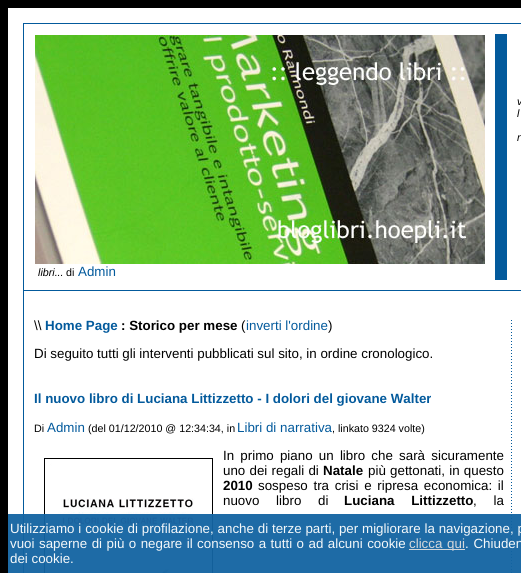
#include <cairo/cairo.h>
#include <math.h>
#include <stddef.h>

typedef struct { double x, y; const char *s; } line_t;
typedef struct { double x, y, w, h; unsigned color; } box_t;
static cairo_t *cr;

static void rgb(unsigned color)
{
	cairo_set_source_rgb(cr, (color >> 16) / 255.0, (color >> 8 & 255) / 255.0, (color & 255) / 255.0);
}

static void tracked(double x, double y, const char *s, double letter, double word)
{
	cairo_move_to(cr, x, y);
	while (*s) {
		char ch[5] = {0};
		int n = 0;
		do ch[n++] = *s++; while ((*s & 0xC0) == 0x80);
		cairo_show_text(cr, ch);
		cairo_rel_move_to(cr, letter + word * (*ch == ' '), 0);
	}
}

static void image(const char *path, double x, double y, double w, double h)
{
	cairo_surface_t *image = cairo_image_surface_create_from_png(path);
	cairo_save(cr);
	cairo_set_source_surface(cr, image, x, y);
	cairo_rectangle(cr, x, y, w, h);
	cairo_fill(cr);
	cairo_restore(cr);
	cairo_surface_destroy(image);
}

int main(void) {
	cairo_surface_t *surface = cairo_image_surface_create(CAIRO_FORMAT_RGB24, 521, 573);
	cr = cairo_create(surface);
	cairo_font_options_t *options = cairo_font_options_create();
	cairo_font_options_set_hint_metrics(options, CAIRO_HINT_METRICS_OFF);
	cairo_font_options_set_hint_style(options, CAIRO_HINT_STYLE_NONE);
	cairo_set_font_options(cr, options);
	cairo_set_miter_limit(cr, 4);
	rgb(0x000000);
	cairo_paint(cr);
	{
		static const box_t items[] = {
			{8, 8, 513, 565, 0xffffff},
			{23, 23, 498, 1, 0x035a9c},
			{23, 23, 1, 550, 0x035a9c},
			{495, 34, 12, 246, 0x035a9c},
		};
		for (size_t i = 0; i < sizeof items / sizeof *items; i++) {
			rgb(items[i].color);
			cairo_rectangle(cr, items[i].x, items[i].y, items[i].w, items[i].h);
			cairo_fill(cr);
		}
	}
	image("img/1.png", 35, 35, 450, 229);
	cairo_rectangle(cr, 23, 290, 498, 1);
	cairo_fill(cr);
	image("img/2.png", 44, 458, 169, 115);
	image("img/3.png", 511, 320, 1, 253);
	cairo_set_source_rgba(cr, 0.078, 0.392, 0.635, 0.95);
	cairo_rectangle(cr, 8, 514, 513, 59);
	cairo_fill(cr);
	cairo_set_source_rgba(cr, 0.867, 0.867, 0.867, 0.95);
	cairo_rectangle(cr, 409, 549, 56, 1);
	cairo_fill(cr);
	cairo_select_font_face(cr, "Liberation Sans", CAIRO_FONT_SLANT_ITALIC, CAIRO_FONT_WEIGHT_NORMAL);
	cairo_set_font_size(cr, 10.7);
	rgb(0x000000);
	{
		static const line_t items[] = {
			{517, 105, "v"},
			{517, 117, "l"},
			{517, 141, "r"},
			{38, 276, "libri..."},
		};
		for (size_t i = 0; i < sizeof items / sizeof *items; i++) {
			cairo_move_to(cr, items[i].x, items[i].y);
			cairo_show_text(cr, items[i].s);
		}
	}
	cairo_select_font_face(cr, "Liberation Sans", CAIRO_FONT_SLANT_NORMAL, CAIRO_FONT_WEIGHT_NORMAL);
	cairo_move_to(cr, 66, 276);
	cairo_show_text(cr, "di");
	cairo_set_font_size(cr, 13.35);
	rgb(0x035a9c);
	cairo_move_to(cr, 78, 276);
	cairo_show_text(cr, "Admin");
	rgb(0x000000);
	cairo_move_to(cr, 34, 330);
	cairo_show_text(cr, "\\\\");
	cairo_select_font_face(cr, "Liberation Sans", CAIRO_FONT_SLANT_NORMAL, CAIRO_FONT_WEIGHT_BOLD);
	rgb(0x035a9c);
	cairo_move_to(cr, 45, 330);
	cairo_show_text(cr, "Home Page");
	rgb(0x000000);
	cairo_move_to(cr, 121, 330);
	cairo_show_text(cr, ": Storico per mese");
	cairo_select_font_face(cr, "Liberation Sans", CAIRO_FONT_SLANT_NORMAL, CAIRO_FONT_WEIGHT_NORMAL);
	cairo_move_to(cr, 241, 330);
	cairo_show_text(cr, "(");
	rgb(0x035a9c);
	cairo_move_to(cr, 246, 330);
	cairo_show_text(cr, "inverti l'ordine");
	rgb(0x000000);
	cairo_move_to(cr, 328, 330);
	cairo_show_text(cr, ")");
	cairo_move_to(cr, 34, 358);
	cairo_show_text(cr, "Di seguito tutti gli interventi pubblicati sul sito, in ordine cronologico.");
	cairo_select_font_face(cr, "Liberation Sans", CAIRO_FONT_SLANT_NORMAL, CAIRO_FONT_WEIGHT_BOLD);
	rgb(0x035a9c);
	cairo_move_to(cr, 34, 403);
	cairo_show_text(cr, "Il nuovo libro di Luciana Littizzetto - I dolori del giovane Walter");
	cairo_select_font_face(cr, "Liberation Sans", CAIRO_FONT_SLANT_NORMAL, CAIRO_FONT_WEIGHT_NORMAL);
	cairo_set_font_size(cr, 10.7);
	rgb(0x000000);
	cairo_move_to(cr, 34, 432);
	cairo_show_text(cr, "Di");
	cairo_set_font_size(cr, 13.35);
	rgb(0x035a9c);
	cairo_move_to(cr, 47, 432);
	cairo_show_text(cr, "Admin");
	cairo_set_font_size(cr, 10.7);
	rgb(0x000000);
	cairo_move_to(cr, 88, 432);
	cairo_show_text(cr, "(del 01/12/2010 @ 12:34:34, in");
	cairo_set_font_size(cr, 13.35);
	rgb(0x035a9c);
	cairo_move_to(cr, 237, 432);
	cairo_show_text(cr, "Libri di narrativa");
	cairo_set_font_size(cr, 10.7);
	rgb(0x000000);
	cairo_move_to(cr, 332, 432);
	cairo_show_text(cr, ", linkato 9324 volte)");
	cairo_set_font_size(cr, 13.35);
	tracked(223, 460, "In primo piano un libro che sarà sicuramente", 0, 2.5);
	tracked(223, 475, "uno dei regali di", 0, 0.5);
	cairo_select_font_face(cr, "Liberation Sans", CAIRO_FONT_SLANT_NORMAL, CAIRO_FONT_WEIGHT_BOLD);
	cairo_move_to(cr, 323, 475);
	cairo_show_text(cr, "Natale");
	cairo_select_font_face(cr, "Liberation Sans", CAIRO_FONT_SLANT_NORMAL, CAIRO_FONT_WEIGHT_NORMAL);
	tracked(368, 475, "più gettonati, in questo", 0, 0.5);
	cairo_select_font_face(cr, "Liberation Sans", CAIRO_FONT_SLANT_NORMAL, CAIRO_FONT_WEIGHT_BOLD);
	cairo_move_to(cr, 223, 490);
	cairo_show_text(cr, "2010");
	cairo_select_font_face(cr, "Liberation Sans", CAIRO_FONT_SLANT_NORMAL, CAIRO_FONT_WEIGHT_NORMAL);
	tracked(258, 490, "sospeso tra crisi e ripresa economica: il", 0, 2);
	tracked(223, 505, "nuovo libro di", 0, 13);
	cairo_select_font_face(cr, "Liberation Sans", CAIRO_FONT_SLANT_NORMAL, CAIRO_FONT_WEIGHT_BOLD);
	tracked(344, 505, "Luciana Littizzetto", 0, 13);
	cairo_select_font_face(cr, "Liberation Sans", CAIRO_FONT_SLANT_NORMAL, CAIRO_FONT_WEIGHT_NORMAL);
	tracked(473, 505, ", la", 0, 13);
	rgb(0xf4f8fa);
	tracked(10, 533, "Utilizziamo i cookie di profilazione, anche di terze parti, per migliorare la navigazione, p", 0, 0.1);
	tracked(10, 548, "vuoi saperne di più o negare il consenso a tutti o ad alcuni cookie", 0, 0.75);
	rgb(0xd3d7da);
	tracked(409, 548, "clicca qui", 0, 1);
	rgb(0xf4f8fa);
	tracked(465, 548, ". Chiuden", 0, 1);
	cairo_move_to(cr, 10, 563);
	cairo_show_text(cr, "dei cookie.");
	cairo_surface_write_to_png(surface, "page.png");
	cairo_font_options_destroy(options);
	cairo_destroy(cr);
	cairo_surface_destroy(surface);
	return 0;
}
